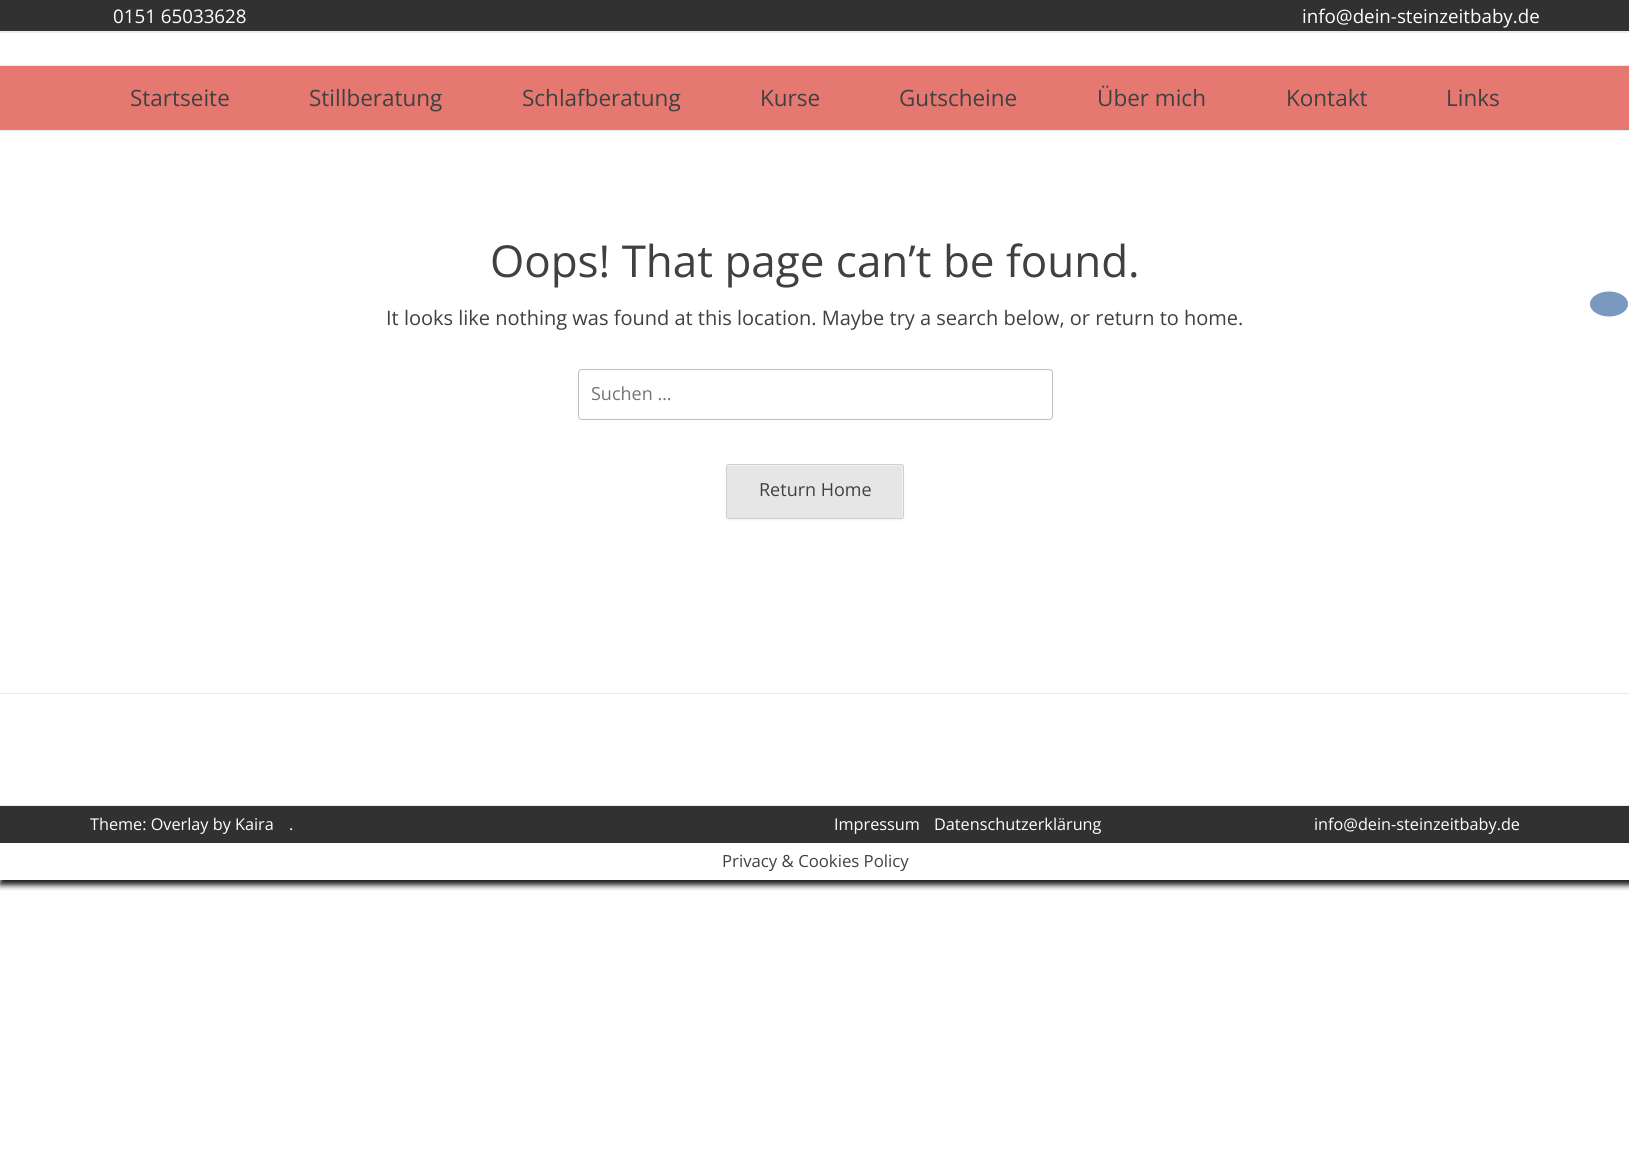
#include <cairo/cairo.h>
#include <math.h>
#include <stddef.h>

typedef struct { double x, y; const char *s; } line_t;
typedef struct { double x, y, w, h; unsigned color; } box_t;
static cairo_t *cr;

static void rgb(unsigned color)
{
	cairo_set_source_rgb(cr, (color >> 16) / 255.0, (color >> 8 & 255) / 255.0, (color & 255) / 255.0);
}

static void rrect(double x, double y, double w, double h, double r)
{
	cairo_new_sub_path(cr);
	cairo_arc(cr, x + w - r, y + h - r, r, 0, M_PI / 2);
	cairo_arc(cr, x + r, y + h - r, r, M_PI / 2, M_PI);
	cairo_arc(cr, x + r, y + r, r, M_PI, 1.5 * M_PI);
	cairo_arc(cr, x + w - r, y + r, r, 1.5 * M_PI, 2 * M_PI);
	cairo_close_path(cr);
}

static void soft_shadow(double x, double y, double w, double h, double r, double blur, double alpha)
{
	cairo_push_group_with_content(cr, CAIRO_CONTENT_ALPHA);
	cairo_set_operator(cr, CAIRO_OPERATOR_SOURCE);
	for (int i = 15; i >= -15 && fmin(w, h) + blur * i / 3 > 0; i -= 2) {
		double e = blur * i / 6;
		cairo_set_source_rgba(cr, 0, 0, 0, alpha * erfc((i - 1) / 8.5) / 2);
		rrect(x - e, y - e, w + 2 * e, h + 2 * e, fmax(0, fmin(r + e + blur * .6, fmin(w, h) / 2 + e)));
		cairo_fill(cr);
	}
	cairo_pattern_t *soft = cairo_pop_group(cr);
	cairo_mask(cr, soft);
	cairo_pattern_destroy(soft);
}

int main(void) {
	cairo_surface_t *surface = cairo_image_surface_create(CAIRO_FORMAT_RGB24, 1629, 1169);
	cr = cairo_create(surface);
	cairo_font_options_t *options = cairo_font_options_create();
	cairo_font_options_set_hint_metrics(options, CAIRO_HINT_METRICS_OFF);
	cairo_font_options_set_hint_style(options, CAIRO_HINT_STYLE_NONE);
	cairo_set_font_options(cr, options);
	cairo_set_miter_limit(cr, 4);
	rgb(0xffffff);
	cairo_paint(cr);
	{
		static const box_t items[] = {
			{0, 130, 1629, 1, 0xebebeb},
			{0, 31, 1629, 2, 0xebebeb},
			{0, 0, 1629, 31, 0x313131},
			{0, 65, 1629, 1, 0xebebeb},
			{0, 66, 1629, 64, 0xe57871},
		};
		for (size_t i = 0; i < sizeof items / sizeof *items; i++) {
			rgb(items[i].color);
			cairo_rectangle(cr, items[i].x, items[i].y, items[i].w, items[i].h);
			cairo_fill(cr);
		}
	}
	rrect(578.5, 369.5, 474, 50, 3.5);
	rgb(0xbfbfbf);
	cairo_set_line_width(cr, 1);
	cairo_stroke(cr);
	cairo_save(cr);
	cairo_set_fill_rule(cr, CAIRO_FILL_RULE_EVEN_ODD);
	cairo_new_path(cr);
	cairo_move_to(cr, 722, 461);
	cairo_line_to(cr, 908, 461);
	cairo_line_to(cr, 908, 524);
	cairo_line_to(cr, 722, 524);
	cairo_close_path(cr);
	cairo_move_to(cr, 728.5, 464);
	cairo_line_to(cr, 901.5, 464);
	cairo_curve_to(cr, 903, 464, 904, 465, 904, 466.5);
	cairo_line_to(cr, 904, 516.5);
	cairo_curve_to(cr, 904, 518, 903, 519, 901.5, 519);
	cairo_line_to(cr, 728.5, 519);
	cairo_curve_to(cr, 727, 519, 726, 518, 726, 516.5);
	cairo_line_to(cr, 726, 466.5);
	cairo_curve_to(cr, 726, 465, 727, 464, 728.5, 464);
	cairo_close_path(cr);
	cairo_clip(cr);
	rgb(0x000000);
	soft_shadow(726, 465, 178, 55, 2.5, 1, 0.06);
	cairo_restore(cr);
	cairo_set_source_rgba(cr, 0, 0, 0, 0.1);
	rrect(726, 464, 178, 55, 2.5);
	cairo_fill(cr);
	rgb(0xf0f0f0);
	cairo_new_path(cr);
	cairo_move_to(cr, 729, 466);
	cairo_line_to(cr, 901, 466);
	cairo_curve_to(cr, 902, 466, 902, 467, 902, 468);
	cairo_line_to(cr, 902, 518);
	cairo_curve_to(cr, 903, 518, 903, 518, 903, 517);
	cairo_line_to(cr, 903, 466);
	cairo_curve_to(cr, 903, 465, 903, 465, 902, 465);
	cairo_line_to(cr, 729, 465);
	cairo_curve_to(cr, 728, 465, 728, 465, 728, 466);
	cairo_line_to(cr, 728, 468);
	cairo_curve_to(cr, 728, 467, 728, 466, 729, 466);
	cairo_close_path(cr);
	cairo_fill(cr);
	rrect(726.5, 464.5, 177, 54, 2);
	cairo_set_source_rgba(cr, 0, 0, 0, 0.1);
	cairo_stroke(cr);
	rgb(0xebebeb);
	cairo_rectangle(cr, 0, 693, 1629, 1);
	cairo_fill(cr);
	cairo_rectangle(cr, 0, 805, 1629, 1);
	cairo_fill(cr);
	cairo_save(cr);
	cairo_rectangle(cr, 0, 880, 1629, 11);
	cairo_clip(cr);
	rgb(0x161616);
	soft_shadow(0, 843, 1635, 42, 0, 3, 1);
	cairo_restore(cr);
	rgb(0x313131);
	cairo_rectangle(cr, 0, 806, 1629, 37);
	cairo_fill(cr);
	rgb(0x7999c1);
	cairo_new_path(cr);
	cairo_move_to(cr, 1609, 291.5);
	cairo_curve_to(cr, 1619.5, 291.5, 1628, 297, 1628, 304);
	cairo_curve_to(cr, 1628, 311, 1619.5, 316.5, 1609, 316.5);
	cairo_curve_to(cr, 1598.5, 316.5, 1590, 311, 1590, 304);
	cairo_curve_to(cr, 1590, 297, 1598.5, 291.5, 1609, 291.5);
	cairo_close_path(cr);
	cairo_fill(cr);
	cairo_select_font_face(cr, "Open Sans", CAIRO_FONT_SLANT_NORMAL, CAIRO_FONT_WEIGHT_NORMAL);
	cairo_set_font_size(cr, 18.75);
	rgb(0xffffff);
	cairo_move_to(cr, 113, 23);
	cairo_show_text(cr, "0151 65033628");
	cairo_move_to(cr, 1302, 23);
	cairo_show_text(cr, "info@dein-steinzeitbaby.de");
	cairo_set_font_size(cr, 22.5);
	rgb(0x404040);
	{
		static const line_t items[] = {
			{130, 106, "Startseite"},
			{309, 106, "Stillberatung"},
			{522, 106, "Schlafberatung"},
			{760, 106, "Kurse"},
			{899, 106, "Gutscheine"},
			{1097, 106, "Über mich"},
			{1286, 106, "Kontakt"},
			{1446, 106, "Links"},
		};
		for (size_t i = 0; i < sizeof items / sizeof *items; i++) {
			cairo_move_to(cr, items[i].x, items[i].y);
			cairo_show_text(cr, items[i].s);
		}
	}
	cairo_set_font_size(cr, 44);
	cairo_move_to(cr, 490, 277);
	cairo_show_text(cr, "Oops! That page can’t be found.");
	cairo_set_font_size(cr, 20);
	cairo_move_to(cr, 386, 325);
	cairo_show_text(cr, "It looks like nothing was found at this location. Maybe try a search below, or return to home.");
	cairo_set_font_size(cr, 18);
	rgb(0x757575);
	cairo_move_to(cr, 591, 400);
	cairo_show_text(cr, "Suchen …");
	rgb(0x404040);
	cairo_move_to(cr, 759, 496);
	cairo_show_text(cr, "Return Home");
	cairo_set_font_size(cr, 16.25);
	rgb(0xffffff);
	{
		static const line_t items[] = {
			{90, 830, "Theme: Overlay by Kaira"},
			{289, 830, "."},
			{834, 830, "Impressum"},
			{934, 830, "Datenschutzerklärung"},
			{1314, 830, "info@dein-steinzeitbaby.de"},
		};
		for (size_t i = 0; i < sizeof items / sizeof *items; i++) {
			cairo_move_to(cr, items[i].x, items[i].y);
			cairo_show_text(cr, items[i].s);
		}
	}
	cairo_set_font_size(cr, 16.75);
	rgb(0x404040);
	cairo_move_to(cr, 722, 867);
	cairo_show_text(cr, "Privacy & Cookies Policy");
	cairo_surface_write_to_png(surface, "page.png");
	cairo_font_options_destroy(options);
	cairo_destroy(cr);
	cairo_surface_destroy(surface);
	return 0;
}
